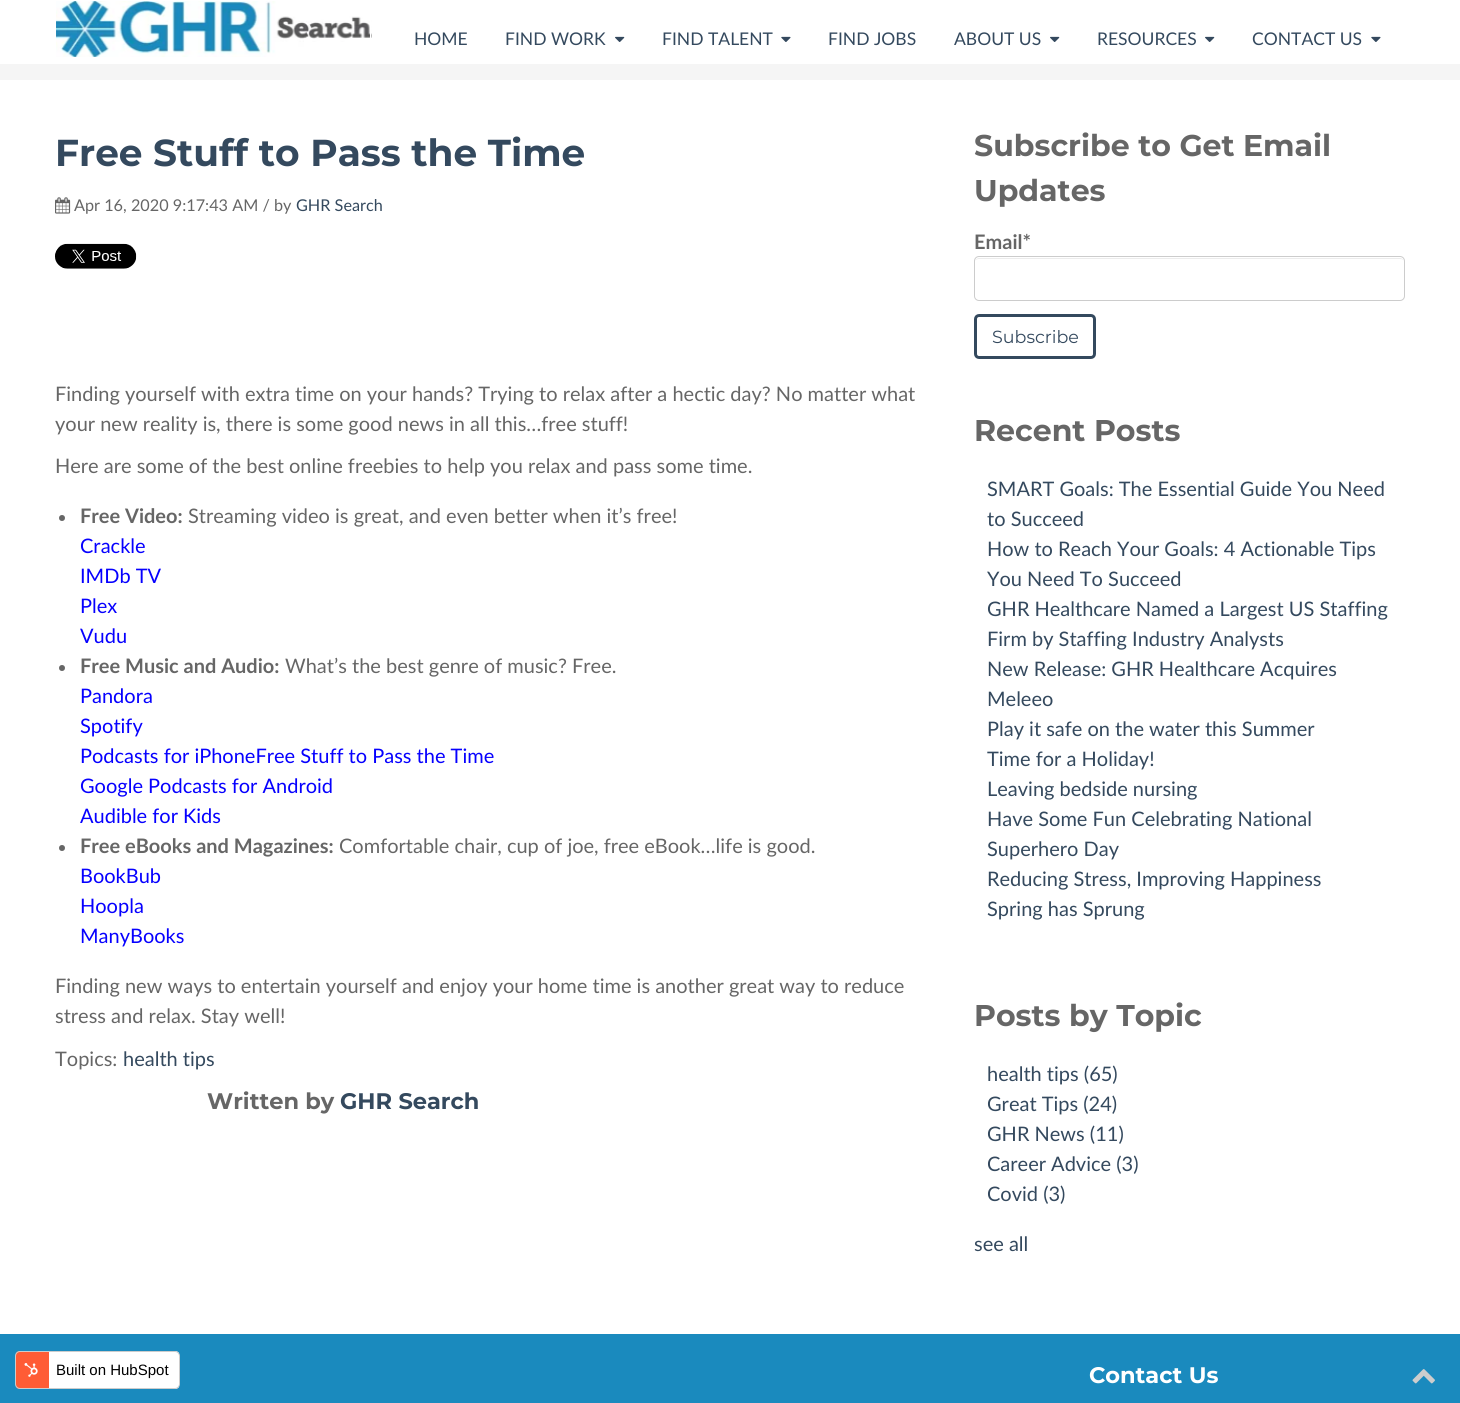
#include <cairo/cairo.h>
#include <math.h>
#include <stddef.h>

typedef struct { double x, y; const char *s; } line_t;
static cairo_t *cr;

static void rgb(unsigned color)
{
	cairo_set_source_rgb(cr, (color >> 16) / 255.0, (color >> 8 & 255) / 255.0, (color & 255) / 255.0);
}

static void rrect(double x, double y, double w, double h, double r)
{
	cairo_new_sub_path(cr);
	cairo_arc(cr, x + w - r, y + h - r, r, 0, M_PI / 2);
	cairo_arc(cr, x + r, y + h - r, r, M_PI / 2, M_PI);
	cairo_arc(cr, x + r, y + r, r, M_PI, 1.5 * M_PI);
	cairo_arc(cr, x + w - r, y + r, r, 1.5 * M_PI, 2 * M_PI);
	cairo_close_path(cr);
}

static void image(const char *path, double x, double y, double w, double h)
{
	cairo_surface_t *image = cairo_image_surface_create_from_png(path);
	cairo_save(cr);
	cairo_set_source_surface(cr, image, x, y);
	cairo_rectangle(cr, x, y, w, h);
	cairo_fill(cr);
	cairo_restore(cr);
	cairo_surface_destroy(image);
}

int main(void) {
	cairo_surface_t *surface = cairo_image_surface_create(CAIRO_FORMAT_RGB24, 1460, 1403);
	cr = cairo_create(surface);
	cairo_font_options_t *options = cairo_font_options_create();
	cairo_font_options_set_hint_metrics(options, CAIRO_HINT_METRICS_OFF);
	cairo_font_options_set_hint_style(options, CAIRO_HINT_STYLE_NONE);
	cairo_set_font_options(cr, options);
	cairo_set_miter_limit(cr, 4);
	rgb(0xffffff);
	cairo_paint(cr);
	image("img/1.png", 56, 0, 316, 58);
	cairo_rectangle(cr, 55.5, 0.5, 315, 57);
	rgb(0xffffff);
	cairo_set_line_width(cr, 1);
	cairo_stroke(cr);
	image("img/2.png", 615, 36, 10, 6);
	image("img/3.png", 781, 36, 10, 6);
	image("img/2.png", 1050, 36, 10, 6);
	image("img/2.png", 1205, 36, 10, 6);
	image("img/3.png", 1371, 36, 10, 6);
	rgb(0xf5f5f5);
	cairo_rectangle(cr, 0, 64, 1460, 16);
	cairo_fill(cr);
	image("img/4.png", 55, 197, 16, 17);
	image("img/5.png", 55, 243, 82, 26);
	rgb(0x666666);
	cairo_arc(cr, 62, 518, 3, 0, 2 * M_PI);
	cairo_fill(cr);
	cairo_arc(cr, 62, 668, 3, 0, 2 * M_PI);
	cairo_fill(cr);
	cairo_arc(cr, 62, 848, 3, 0, 2 * M_PI);
	cairo_fill(cr);
	rgb(0xececec);
	cairo_new_path(cr);
	cairo_move_to(cr, 979, 259);
	cairo_line_to(cr, 1400, 259);
	cairo_curve_to(cr, 1402, 259, 1404, 260, 1404, 262);
	cairo_curve_to(cr, 1404, 260, 1402, 258, 1400, 258);
	cairo_line_to(cr, 979, 258);
	cairo_curve_to(cr, 977, 258, 975, 260, 975, 262);
	cairo_curve_to(cr, 975, 260, 977, 259, 979, 259);
	cairo_close_path(cr);
	cairo_fill(cr);
	rrect(974.5, 256.5, 430, 44, 4.5);
	rgb(0xcccccc);
	cairo_stroke(cr);
	rrect(975.5, 315.5, 119, 42, 3.5);
	rgb(0x34495e);
	cairo_set_line_width(cr, 3);
	cairo_stroke(cr);
	rgb(0x1a8abe);
	cairo_rectangle(cr, 0, 1334, 1460, 69);
	cairo_fill(cr);
	cairo_save(cr);
	rrect(15, 1351, 165, 38, 5);
	cairo_clip(cr);
	rgb(0xff5c35);
	cairo_rectangle(cr, 16, 1351, 33, 38);
	cairo_fill(cr);
	rgb(0xffffff);
	cairo_rectangle(cr, 49, 1351, 130, 38);
	cairo_fill(cr);
	cairo_restore(cr);
	rrect(15.5, 1351.5, 164, 37, 4.5);
	rgb(0xcccccc);
	cairo_set_line_width(cr, 1);
	cairo_stroke(cr);
	image("img/6.png", 24, 1363, 14, 14);
	image("img/7.png", 1412, 1369, 23, 15);
	cairo_select_font_face(cr, "Lato", CAIRO_FONT_SLANT_NORMAL, CAIRO_FONT_WEIGHT_NORMAL);
	cairo_set_font_size(cr, 17.5);
	rgb(0x34495e);
	{
		static const line_t items[] = {
			{414, 45, "HOME"},
			{505, 45, "FIND WORK"},
			{662, 45, "FIND TALENT"},
			{828, 45, "FIND JOBS"},
			{954, 45, "ABOUT US"},
			{1097, 45, "RESOURCES"},
			{1252, 45, "CONTACT US"},
		};
		for (size_t i = 0; i < sizeof items / sizeof *items; i++) {
			cairo_move_to(cr, items[i].x, items[i].y);
			cairo_show_text(cr, items[i].s);
		}
	}
	cairo_select_font_face(cr, "Montserrat", CAIRO_FONT_SLANT_NORMAL, CAIRO_FONT_WEIGHT_BOLD);
	cairo_set_font_size(cr, 37.5);
	cairo_move_to(cr, 55, 166);
	cairo_show_text(cr, "Free Stuff to Pass the Time");
	cairo_select_font_face(cr, "Lato", CAIRO_FONT_SLANT_NORMAL, CAIRO_FONT_WEIGHT_NORMAL);
	cairo_set_font_size(cr, 16.25);
	rgb(0x666666);
	cairo_move_to(cr, 74, 211);
	cairo_show_text(cr, "Apr 16, 2020 9:17:43 AM / by");
	rgb(0x34495e);
	cairo_move_to(cr, 296, 211);
	cairo_show_text(cr, "GHR Search");
	cairo_set_font_size(cr, 20);
	rgb(0x666666);
	{
		static const line_t items[] = {
			{55, 401, "Finding yourself with extra time on your hands? Trying to relax after a hectic day? No matter what"},
			{55, 431, "your new reality is, there is some good news in all this…free stuff!"},
			{55, 473, "Here are some of the best online freebies to help you relax and pass some time."},
		};
		for (size_t i = 0; i < sizeof items / sizeof *items; i++) {
			cairo_move_to(cr, items[i].x, items[i].y);
			cairo_show_text(cr, items[i].s);
		}
	}
	cairo_select_font_face(cr, "Lato", CAIRO_FONT_SLANT_NORMAL, CAIRO_FONT_WEIGHT_BOLD);
	cairo_move_to(cr, 80, 523);
	cairo_show_text(cr, "Free Video:");
	cairo_select_font_face(cr, "Lato", CAIRO_FONT_SLANT_NORMAL, CAIRO_FONT_WEIGHT_NORMAL);
	cairo_move_to(cr, 188, 523);
	cairo_show_text(cr, "Streaming video is great, and even better when it’s free!");
	rgb(0x0600ff);
	{
		static const line_t items[] = {
			{80, 553, "Crackle"},
			{80, 583, "IMDb TV"},
			{80, 613, "Plex"},
			{80, 643, "Vudu"},
		};
		for (size_t i = 0; i < sizeof items / sizeof *items; i++) {
			cairo_move_to(cr, items[i].x, items[i].y);
			cairo_show_text(cr, items[i].s);
		}
	}
	cairo_select_font_face(cr, "Lato", CAIRO_FONT_SLANT_NORMAL, CAIRO_FONT_WEIGHT_BOLD);
	rgb(0x666666);
	cairo_move_to(cr, 80, 673);
	cairo_show_text(cr, "Free Music and Audio:");
	cairo_select_font_face(cr, "Lato", CAIRO_FONT_SLANT_NORMAL, CAIRO_FONT_WEIGHT_NORMAL);
	cairo_move_to(cr, 285, 673);
	cairo_show_text(cr, "What’s the best genre of music? Free.");
	rgb(0x0600ff);
	{
		static const line_t items[] = {
			{80, 703, "Pandora"},
			{80, 733, "Spotify"},
			{80, 763, "Podcasts for iPhoneFree Stuff to Pass the Time"},
			{80, 793, "Google Podcasts for Android"},
			{80, 823, "Audible for Kids"},
		};
		for (size_t i = 0; i < sizeof items / sizeof *items; i++) {
			cairo_move_to(cr, items[i].x, items[i].y);
			cairo_show_text(cr, items[i].s);
		}
	}
	cairo_select_font_face(cr, "Lato", CAIRO_FONT_SLANT_NORMAL, CAIRO_FONT_WEIGHT_BOLD);
	rgb(0x666666);
	cairo_move_to(cr, 80, 853);
	cairo_show_text(cr, "Free eBooks and Magazines:");
	cairo_select_font_face(cr, "Lato", CAIRO_FONT_SLANT_NORMAL, CAIRO_FONT_WEIGHT_NORMAL);
	cairo_move_to(cr, 339, 853);
	cairo_show_text(cr, "Comfortable chair, cup of joe, free eBook…life is good.");
	rgb(0x0600ff);
	{
		static const line_t items[] = {
			{80, 883, "BookBub"},
			{80, 913, "Hoopla"},
			{80, 943, "ManyBooks"},
		};
		for (size_t i = 0; i < sizeof items / sizeof *items; i++) {
			cairo_move_to(cr, items[i].x, items[i].y);
			cairo_show_text(cr, items[i].s);
		}
	}
	rgb(0x666666);
	{
		static const line_t items[] = {
			{55, 993, "Finding new ways to entertain yourself and enjoy your home time is another great way to reduce"},
			{55, 1023, "stress and relax. Stay well!"},
			{55, 1066, "Topics:"},
		};
		for (size_t i = 0; i < sizeof items / sizeof *items; i++) {
			cairo_move_to(cr, items[i].x, items[i].y);
			cairo_show_text(cr, items[i].s);
		}
	}
	rgb(0x34495e);
	cairo_move_to(cr, 123, 1066);
	cairo_show_text(cr, "health tips");
	cairo_select_font_face(cr, "Montserrat", CAIRO_FONT_SLANT_NORMAL, CAIRO_FONT_WEIGHT_BOLD);
	cairo_set_font_size(cr, 22.5);
	rgb(0x666666);
	cairo_move_to(cr, 207, 1109);
	cairo_show_text(cr, "Written by");
	rgb(0x34495e);
	cairo_move_to(cr, 340, 1109);
	cairo_show_text(cr, "GHR Search");
	cairo_set_font_size(cr, 30);
	rgb(0x666666);
	cairo_move_to(cr, 974, 156);
	cairo_show_text(cr, "Subscribe to Get Email");
	cairo_move_to(cr, 974, 201);
	cairo_show_text(cr, "Updates");
	cairo_select_font_face(cr, "Lato", CAIRO_FONT_SLANT_NORMAL, CAIRO_FONT_WEIGHT_BOLD);
	cairo_set_font_size(cr, 20);
	cairo_move_to(cr, 974, 249);
	cairo_show_text(cr, "Email*");
	cairo_select_font_face(cr, "Montserrat", CAIRO_FONT_SLANT_NORMAL, CAIRO_FONT_WEIGHT_NORMAL);
	cairo_set_font_size(cr, 17.5);
	rgb(0x34495e);
	cairo_move_to(cr, 992, 343);
	cairo_show_text(cr, "Subscribe");
	cairo_select_font_face(cr, "Montserrat", CAIRO_FONT_SLANT_NORMAL, CAIRO_FONT_WEIGHT_BOLD);
	cairo_set_font_size(cr, 30);
	rgb(0x666666);
	cairo_move_to(cr, 974, 441);
	cairo_show_text(cr, "Recent Posts");
	cairo_select_font_face(cr, "Lato", CAIRO_FONT_SLANT_NORMAL, CAIRO_FONT_WEIGHT_NORMAL);
	cairo_set_font_size(cr, 20);
	rgb(0x34495e);
	{
		static const line_t items[] = {
			{987, 496, "SMART Goals: The Essential Guide You Need"},
			{987, 526, "to Succeed"},
			{987, 556, "How to Reach Your Goals: 4 Actionable Tips"},
			{987, 586, "You Need To Succeed"},
			{987, 616, "GHR Healthcare Named a Largest US Staffing"},
			{987, 646, "Firm by Staffing Industry Analysts"},
			{987, 676, "New Release: GHR Healthcare Acquires"},
			{987, 706, "Meleeo"},
			{987, 736, "Play it safe on the water this Summer"},
			{987, 766, "Time for a Holiday!"},
			{987, 796, "Leaving bedside nursing"},
			{987, 826, "Have Some Fun Celebrating National"},
			{987, 856, "Superhero Day"},
			{987, 886, "Reducing Stress, Improving Happiness"},
			{987, 916, "Spring has Sprung"},
		};
		for (size_t i = 0; i < sizeof items / sizeof *items; i++) {
			cairo_move_to(cr, items[i].x, items[i].y);
			cairo_show_text(cr, items[i].s);
		}
	}
	cairo_select_font_face(cr, "Montserrat", CAIRO_FONT_SLANT_NORMAL, CAIRO_FONT_WEIGHT_BOLD);
	cairo_set_font_size(cr, 30);
	rgb(0x666666);
	cairo_move_to(cr, 974, 1026);
	cairo_show_text(cr, "Posts by Topic");
	cairo_select_font_face(cr, "Lato", CAIRO_FONT_SLANT_NORMAL, CAIRO_FONT_WEIGHT_NORMAL);
	cairo_set_font_size(cr, 20);
	rgb(0x34495e);
	{
		static const line_t items[] = {
			{987, 1081, "health tips (65)"},
			{987, 1111, "Great Tips (24)"},
			{987, 1141, "GHR News (11)"},
			{987, 1171, "Career Advice (3)"},
			{987, 1201, "Covid (3)"},
			{974, 1251, "see all"},
		};
		for (size_t i = 0; i < sizeof items / sizeof *items; i++) {
			cairo_move_to(cr, items[i].x, items[i].y);
			cairo_show_text(cr, items[i].s);
		}
	}
	cairo_select_font_face(cr, "Liberation Sans", CAIRO_FONT_SLANT_NORMAL, CAIRO_FONT_WEIGHT_NORMAL);
	cairo_set_font_size(cr, 15);
	rgb(0x000000);
	cairo_move_to(cr, 56, 1375);
	cairo_show_text(cr, "Built on HubSpot");
	cairo_select_font_face(cr, "Montserrat", CAIRO_FONT_SLANT_NORMAL, CAIRO_FONT_WEIGHT_BOLD);
	cairo_set_font_size(cr, 22.5);
	rgb(0xffffff);
	cairo_move_to(cr, 1089, 1383);
	cairo_show_text(cr, "Contact Us");
	cairo_surface_write_to_png(surface, "page.png");
	cairo_font_options_destroy(options);
	cairo_destroy(cr);
	cairo_surface_destroy(surface);
	return 0;
}
